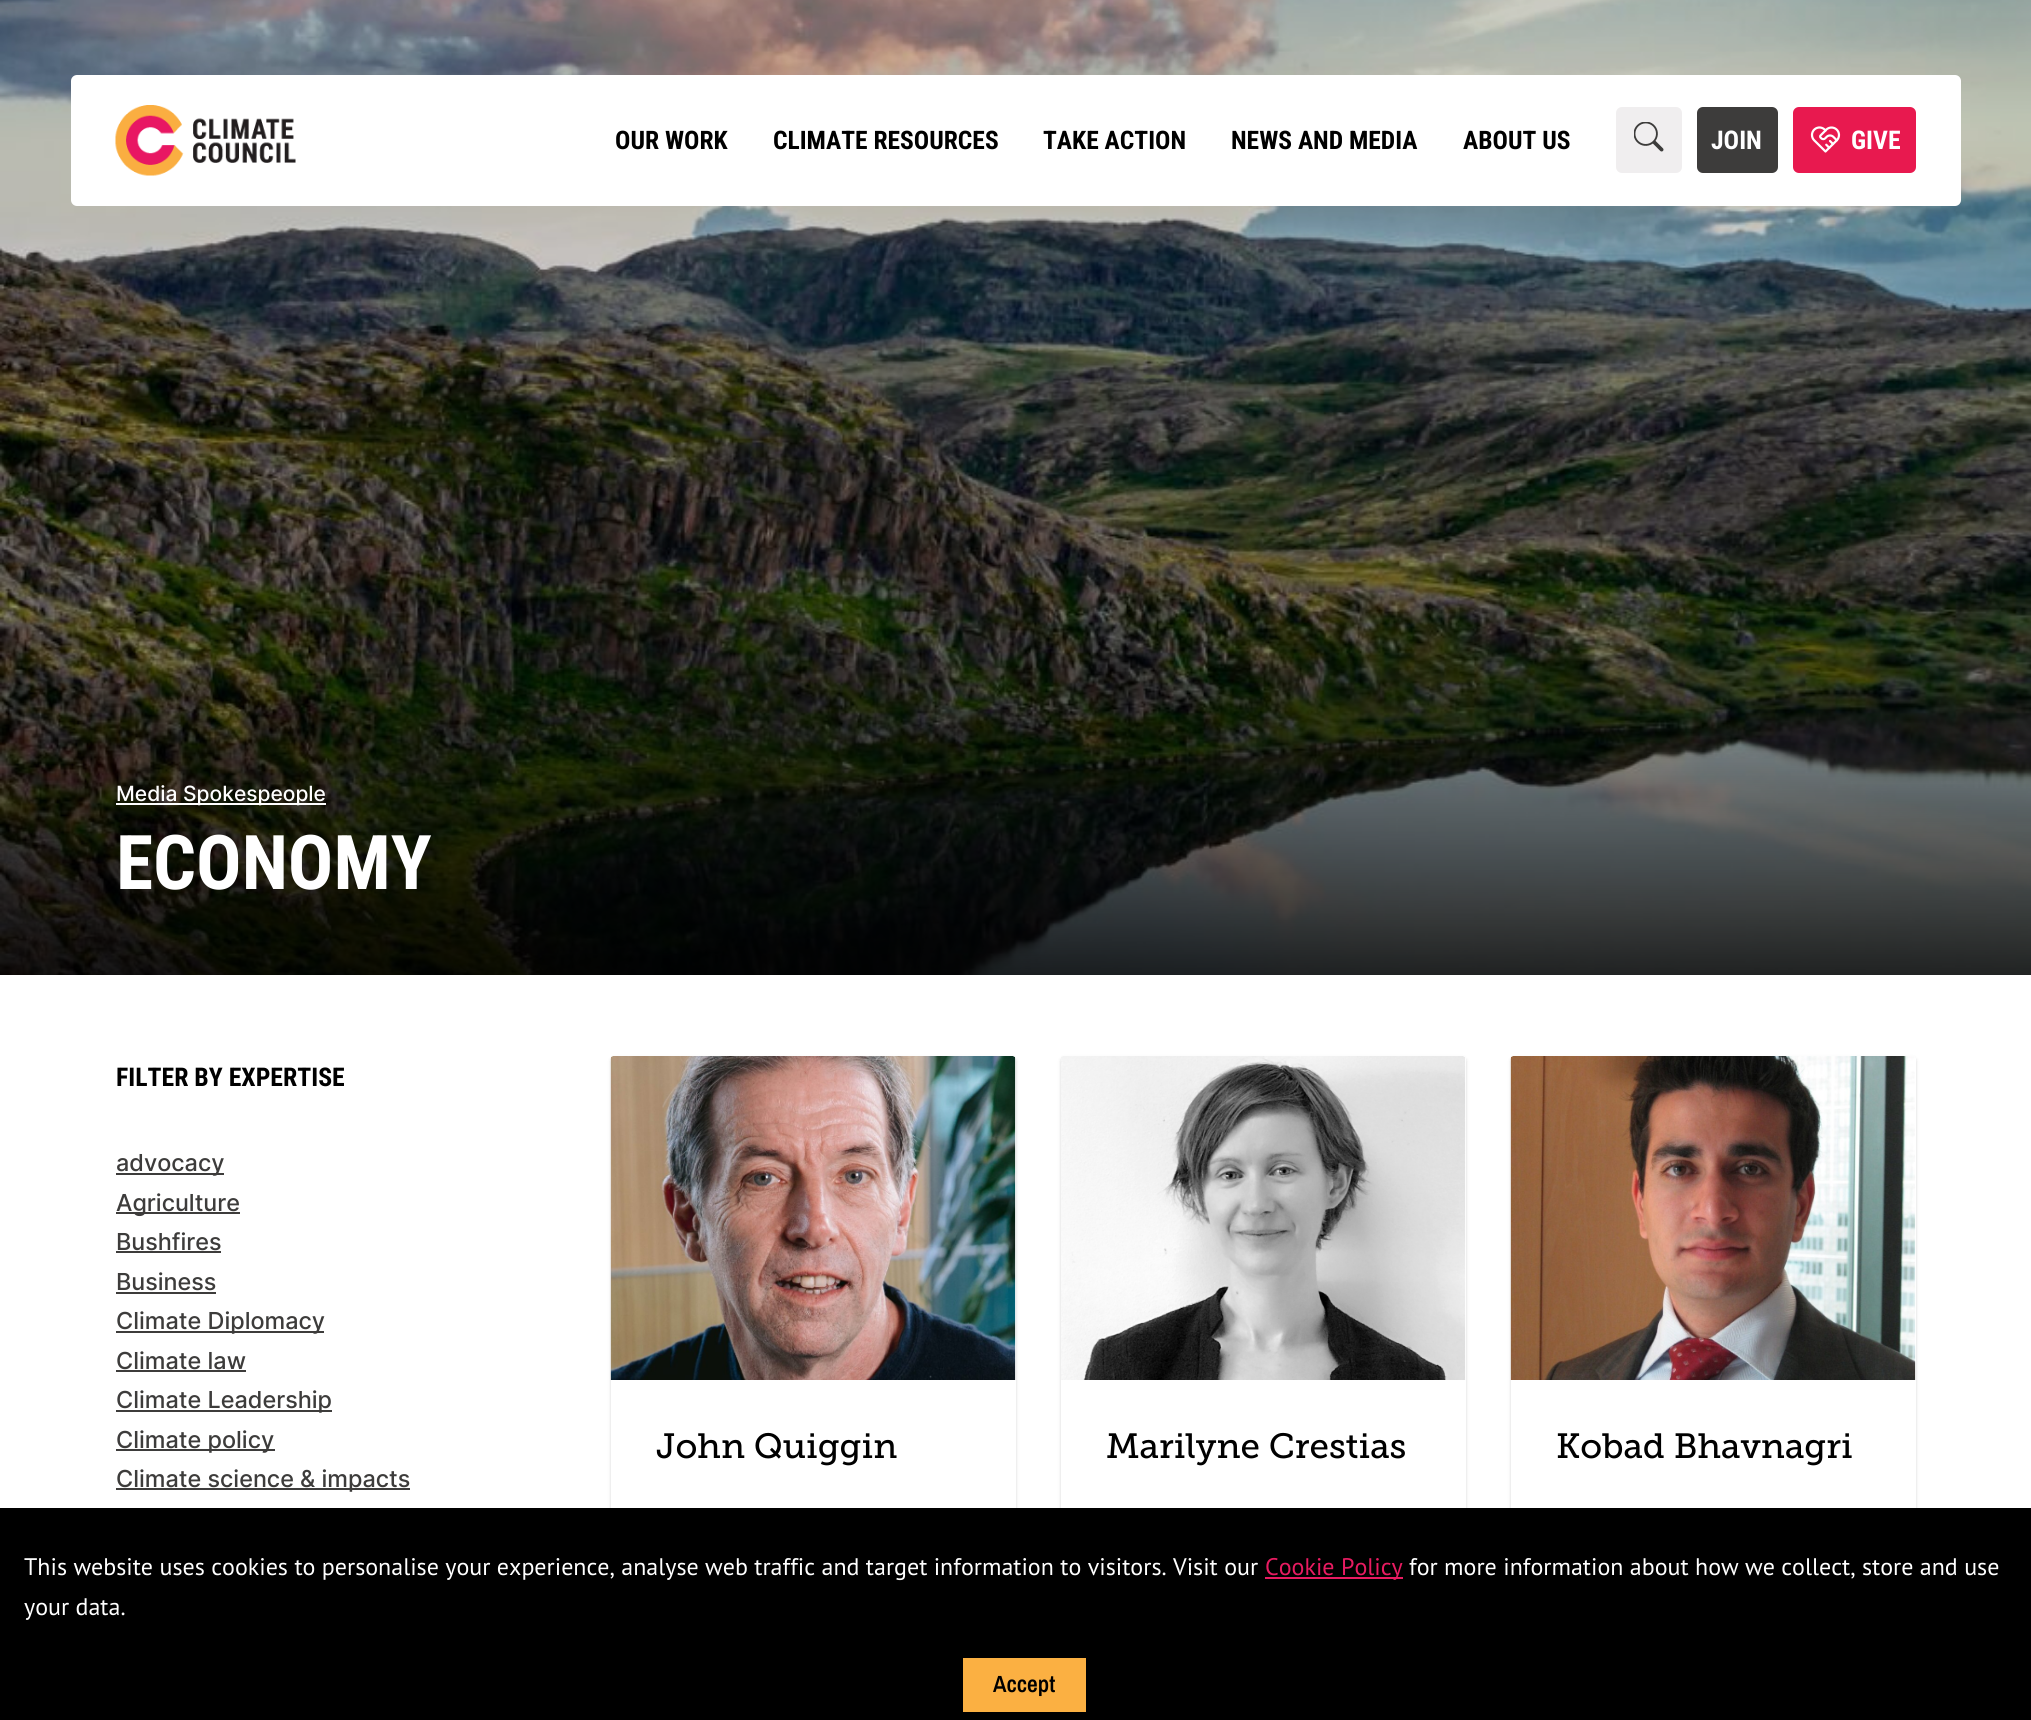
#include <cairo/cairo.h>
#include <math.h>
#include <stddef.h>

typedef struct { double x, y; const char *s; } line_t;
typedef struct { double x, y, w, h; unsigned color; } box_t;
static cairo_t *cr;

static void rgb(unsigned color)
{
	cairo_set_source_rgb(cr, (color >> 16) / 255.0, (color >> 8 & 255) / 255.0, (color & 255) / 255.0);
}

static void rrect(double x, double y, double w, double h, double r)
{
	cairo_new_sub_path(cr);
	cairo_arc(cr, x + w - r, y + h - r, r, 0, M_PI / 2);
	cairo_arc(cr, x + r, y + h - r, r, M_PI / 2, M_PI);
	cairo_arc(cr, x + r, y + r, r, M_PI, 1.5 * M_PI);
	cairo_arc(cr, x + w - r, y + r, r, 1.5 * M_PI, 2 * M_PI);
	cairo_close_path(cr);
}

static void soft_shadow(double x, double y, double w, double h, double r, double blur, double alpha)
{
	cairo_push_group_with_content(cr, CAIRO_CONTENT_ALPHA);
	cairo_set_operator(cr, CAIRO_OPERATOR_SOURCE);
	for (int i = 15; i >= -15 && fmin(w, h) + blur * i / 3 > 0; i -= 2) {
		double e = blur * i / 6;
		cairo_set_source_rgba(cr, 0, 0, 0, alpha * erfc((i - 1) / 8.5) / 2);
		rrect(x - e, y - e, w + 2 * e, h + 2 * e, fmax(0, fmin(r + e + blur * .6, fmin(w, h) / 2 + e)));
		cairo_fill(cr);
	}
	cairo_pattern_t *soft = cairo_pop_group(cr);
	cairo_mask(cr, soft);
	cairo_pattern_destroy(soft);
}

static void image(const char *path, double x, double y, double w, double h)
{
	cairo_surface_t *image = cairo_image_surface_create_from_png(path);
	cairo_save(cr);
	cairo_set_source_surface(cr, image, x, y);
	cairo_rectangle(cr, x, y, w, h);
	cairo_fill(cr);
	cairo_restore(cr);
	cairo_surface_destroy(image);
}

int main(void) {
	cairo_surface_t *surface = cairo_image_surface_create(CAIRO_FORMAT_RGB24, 2031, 1720);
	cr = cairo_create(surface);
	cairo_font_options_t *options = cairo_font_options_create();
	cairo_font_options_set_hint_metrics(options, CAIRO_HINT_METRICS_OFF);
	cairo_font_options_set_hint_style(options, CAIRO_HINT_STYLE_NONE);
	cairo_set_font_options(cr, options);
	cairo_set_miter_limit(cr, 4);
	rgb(0xffffff);
	cairo_paint(cr);
	image("img/4.png", 0, 0, 2031, 975);
	rgb(0xffffff);
	rrect(71, 75, 1890, 131, 6);
	cairo_fill(cr);
	image("img/1.png", 115, 105, 181, 71);
	rgb(0xf0eeef);
	rrect(1616, 107, 66, 66, 6);
	cairo_fill(cr);
	image("img/2.png", 1634, 122, 30, 30);
	rgb(0x3d3c3b);
	rrect(1697, 107, 81, 66, 6);
	cairo_fill(cr);
	rgb(0xe8194f);
	rrect(1793, 107, 123, 66, 6);
	cairo_fill(cr);
	image("img/3.png", 1810, 126, 31, 27);
	{
		static const box_t items[] = {
			{116, 803, 210, 2, 0xffffff},
			{116, 1173, 108, 2, 0x3d3c3b},
			{116, 1212, 124, 2, 0x3d3c3b},
			{116, 1251, 105, 2, 0x3d3c3b},
			{116, 1292, 100, 2, 0x3d3c3b},
			{116, 1331, 208, 2, 0x3d3c3b},
			{116, 1370, 130, 2, 0x3d3c3b},
			{116, 1410, 216, 2, 0x3d3c3b},
			{116, 1449, 159, 2, 0x3d3c3b},
			{116, 1488, 294, 2, 0x3d3c3b},
		};
		for (size_t i = 0; i < sizeof items / sizeof *items; i++) {
			rgb(items[i].color);
			cairo_rectangle(cr, items[i].x, items[i].y, items[i].w, items[i].h);
			cairo_fill(cr);
		}
	}
	rgb(0x000000);
	soft_shadow(611, 1058, 405, 463, 3, 1.5, 0.06);
	soft_shadow(611, 1058, 405, 463, 3, 2, 0.1);
	rgb(0xffffff);
	rrect(611, 1056, 405, 464, 3);
	cairo_fill(cr);
	image("img/5.png", 610, 1056, 406, 324);
	rgb(0x000000);
	soft_shadow(1061, 1058, 405, 463, 3, 1.5, 0.06);
	soft_shadow(1061, 1058, 405, 463, 3, 2, 0.1);
	rgb(0xffffff);
	rrect(1061, 1056, 405, 464, 3);
	cairo_fill(cr);
	image("img/6.png", 1061, 1056, 405, 324);
	rgb(0x000000);
	soft_shadow(1511, 1058, 405, 463, 3, 1.5, 0.06);
	soft_shadow(1511, 1058, 405, 463, 3, 2, 0.1);
	rgb(0xffffff);
	rrect(1511, 1056, 405, 464, 3);
	cairo_fill(cr);
	image("img/7.png", 1510, 1056, 406, 324);
	{
		static const box_t items[] = {
			{0, 1508, 2031, 212, 0x000000},
			{1265, 1577, 138, 2, 0xe81b61},
			{963, 1658, 123, 54, 0xfbb042},
		};
		for (size_t i = 0; i < sizeof items / sizeof *items; i++) {
			rgb(items[i].color);
			cairo_rectangle(cr, items[i].x, items[i].y, items[i].w, items[i].h);
			cairo_fill(cr);
		}
	}
	cairo_select_font_face(cr, "Roboto Condensed", CAIRO_FONT_SLANT_NORMAL, CAIRO_FONT_WEIGHT_BOLD);
	cairo_set_font_size(cr, 25.5);
	rgb(0x000000);
	{
		static const line_t items[] = {
			{615, 149, "OUR WORK"},
			{773, 149, "CLIMATE RESOURCES"},
			{1043, 149, "TAKE ACTION"},
			{1231, 149, "NEWS AND MEDIA"},
			{1463, 149, "ABOUT US"},
		};
		for (size_t i = 0; i < sizeof items / sizeof *items; i++) {
			cairo_move_to(cr, items[i].x, items[i].y);
			cairo_show_text(cr, items[i].s);
		}
	}
	cairo_set_font_size(cr, 25.75);
	rgb(0xffffff);
	cairo_move_to(cr, 1711, 149);
	cairo_show_text(cr, "JOIN");
	cairo_move_to(cr, 1851, 149);
	cairo_show_text(cr, "GIVE");
	cairo_select_font_face(cr, "Inter Medium", CAIRO_FONT_SLANT_NORMAL, CAIRO_FONT_WEIGHT_NORMAL);
	cairo_set_font_size(cr, 21);
	cairo_move_to(cr, 116, 801);
	cairo_show_text(cr, "Media Spokespeople");
	cairo_select_font_face(cr, "Roboto Condensed", CAIRO_FONT_SLANT_NORMAL, CAIRO_FONT_WEIGHT_BOLD);
	cairo_set_font_size(cr, 75.5);
	cairo_move_to(cr, 116, 889);
	cairo_show_text(cr, "ECONOMY");
	cairo_set_font_size(cr, 25.75);
	rgb(0x000000);
	cairo_move_to(cr, 116, 1086);
	cairo_show_text(cr, "FILTER BY EXPERTISE");
	cairo_select_font_face(cr, "Inter Medium", CAIRO_FONT_SLANT_NORMAL, CAIRO_FONT_WEIGHT_NORMAL);
	cairo_set_font_size(cr, 23.4);
	rgb(0x3d3c3b);
	{
		static const line_t items[] = {
			{116, 1171, "advocacy"},
			{116, 1211, "Agriculture"},
			{116, 1250, "Bushfires"},
			{116, 1290, "Business"},
			{116, 1329, "Climate Diplomacy"},
			{116, 1369, "Climate law"},
			{116, 1408, "Climate Leadership"},
			{116, 1448, "Climate policy"},
			{116, 1487, "Climate science & impacts"},
		};
		for (size_t i = 0; i < sizeof items / sizeof *items; i++) {
			cairo_move_to(cr, items[i].x, items[i].y);
			cairo_show_text(cr, items[i].s);
		}
	}
	cairo_select_font_face(cr, "Museo Slab", CAIRO_FONT_SLANT_NORMAL, CAIRO_FONT_WEIGHT_NORMAL);
	cairo_set_font_size(cr, 35);
	rgb(0x000000);
	{
		static const line_t items[] = {
			{656, 1458, "John Quiggin"},
			{1106, 1458, "Marilyne Crestias"},
			{1556, 1458, "Kobad Bhavnagri"},
		};
		for (size_t i = 0; i < sizeof items / sizeof *items; i++) {
			cairo_move_to(cr, items[i].x, items[i].y);
			cairo_show_text(cr, items[i].s);
		}
	}
	cairo_select_font_face(cr, "PT Sans", CAIRO_FONT_SLANT_NORMAL, CAIRO_FONT_WEIGHT_NORMAL);
	cairo_set_font_size(cr, 24);
	rgb(0xffffff);
	cairo_move_to(cr, 24, 1575);
	cairo_show_text(cr, "This website uses cookies to personalise your experience, analyse web traffic and target information to visitors. Visit our");
	rgb(0xe81b61);
	cairo_move_to(cr, 1265, 1575);
	cairo_show_text(cr, "Cookie Policy");
	rgb(0xffffff);
	cairo_move_to(cr, 1409, 1575);
	cairo_show_text(cr, "for more information about how we collect, store and use");
	cairo_move_to(cr, 24, 1615);
	cairo_show_text(cr, "your data.");
	cairo_select_font_face(cr, "Archivo Narrow SemiBold", CAIRO_FONT_SLANT_NORMAL, CAIRO_FONT_WEIGHT_NORMAL);
	cairo_set_font_size(cr, 23.4);
	rgb(0x000000);
	cairo_move_to(cr, 993, 1692);
	cairo_show_text(cr, "Accept");
	cairo_surface_write_to_png(surface, "page.png");
	cairo_font_options_destroy(options);
	cairo_destroy(cr);
	cairo_surface_destroy(surface);
	return 0;
}
